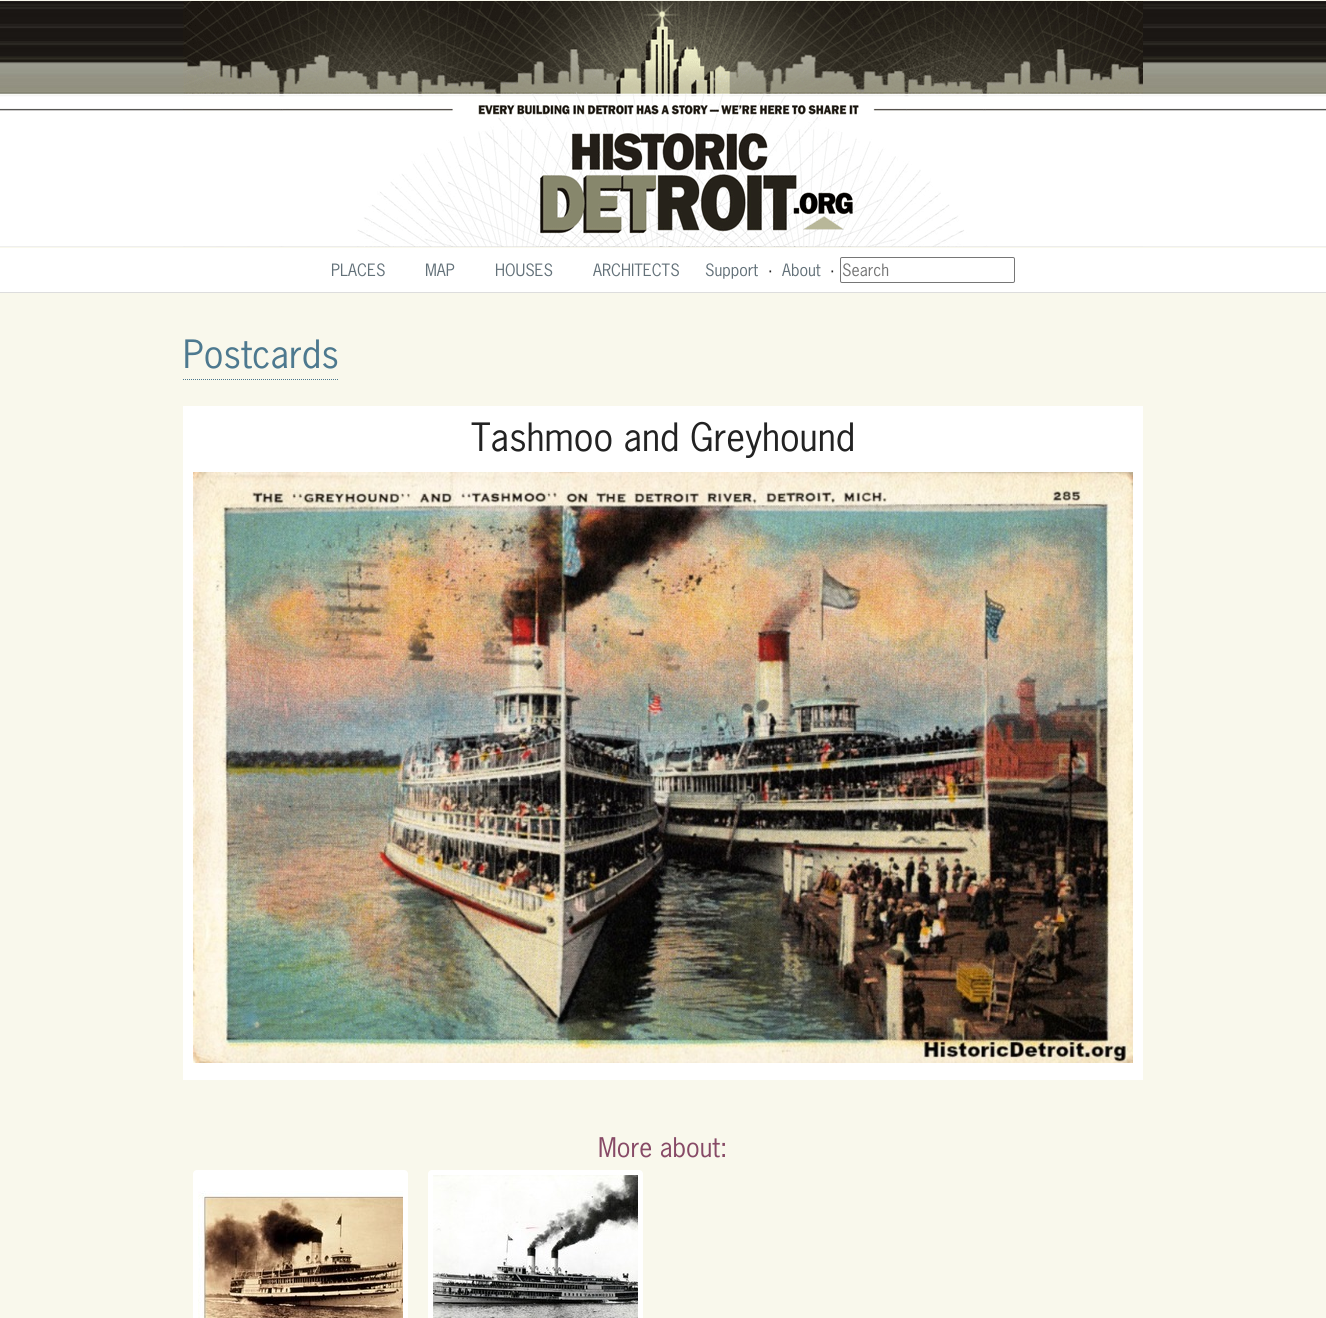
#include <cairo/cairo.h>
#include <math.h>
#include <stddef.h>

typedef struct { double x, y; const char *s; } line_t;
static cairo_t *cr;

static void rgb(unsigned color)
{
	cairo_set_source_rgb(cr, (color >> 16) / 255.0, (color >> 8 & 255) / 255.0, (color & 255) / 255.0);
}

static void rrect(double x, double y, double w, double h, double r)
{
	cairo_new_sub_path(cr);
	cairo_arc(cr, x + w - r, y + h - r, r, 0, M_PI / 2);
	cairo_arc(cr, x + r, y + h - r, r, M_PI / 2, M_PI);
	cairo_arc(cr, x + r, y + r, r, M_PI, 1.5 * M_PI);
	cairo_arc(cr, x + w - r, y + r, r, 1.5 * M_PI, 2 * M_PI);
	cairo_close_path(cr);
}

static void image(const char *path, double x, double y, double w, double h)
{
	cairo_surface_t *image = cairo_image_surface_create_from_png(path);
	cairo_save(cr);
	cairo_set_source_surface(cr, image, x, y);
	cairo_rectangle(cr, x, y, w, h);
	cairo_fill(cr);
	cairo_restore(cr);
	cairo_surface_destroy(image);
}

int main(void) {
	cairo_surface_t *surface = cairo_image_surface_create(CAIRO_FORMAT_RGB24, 1326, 1318);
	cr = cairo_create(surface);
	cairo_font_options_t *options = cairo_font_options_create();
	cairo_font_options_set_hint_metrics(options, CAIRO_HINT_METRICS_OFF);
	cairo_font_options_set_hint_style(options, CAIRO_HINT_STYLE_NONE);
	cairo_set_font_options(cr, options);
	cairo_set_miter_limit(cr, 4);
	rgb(0xf9f8ec);
	cairo_paint(cr);
	image("img/1.png", 0, 1, 1326, 246);
	image("img/2.png", 183, 1, 960, 246);
	rgb(0xffffff);
	cairo_rectangle(cr, 0, 248, 1326, 44);
	cairo_fill(cr);
	rgb(0xdddddd);
	cairo_rectangle(cr, 0, 292, 1326, 1);
	cairo_fill(cr);
	rrect(840.5, 257.5, 174, 25, 1.5);
	rgb(0x767676);
	cairo_set_line_width(cr, 1);
	cairo_stroke(cr);
	cairo_new_path(cr);
	cairo_move_to(cr, 183, 379.5);
	cairo_line_to(cr, 339, 379.5);
	rgb(0x4d798f);
	cairo_set_dash(cr, (double[]){1, 1}, 2, 0);
	cairo_stroke(cr);
	rgb(0xffffff);
	cairo_rectangle(cr, 183, 406, 960, 674);
	cairo_fill(cr);
	image("img/3.png", 193, 472, 940, 591);
	rrect(193, 1170, 215, 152, 4);
	cairo_fill(cr);
	image("img/4.png", 198, 1191, 205, 127);
	rrect(428, 1170, 215, 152, 4);
	cairo_fill(cr);
	image("img/5.png", 433, 1175, 205, 143);
	cairo_select_font_face(cr, "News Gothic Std", CAIRO_FONT_SLANT_NORMAL, CAIRO_FONT_WEIGHT_NORMAL);
	cairo_set_font_size(cr, 16);
	rgb(0x637179);
	{
		static const line_t items[] = {
			{331, 276, "PLACES"},
			{425, 276, "MAP"},
			{495, 276, "HOUSES"},
			{593, 276, "ARCHITECTS"},
			{705, 276, "Support"},
		};
		for (size_t i = 0; i < sizeof items / sizeof *items; i++) {
			cairo_move_to(cr, items[i].x, items[i].y);
			cairo_show_text(cr, items[i].s);
		}
	}
	rgb(0x222222);
	cairo_move_to(cr, 768, 276);
	cairo_show_text(cr, "·");
	rgb(0x637179);
	cairo_move_to(cr, 782, 276);
	cairo_show_text(cr, "About");
	rgb(0x222222);
	cairo_move_to(cr, 830, 276);
	cairo_show_text(cr, "·");
	rgb(0x757575);
	cairo_move_to(cr, 842, 276);
	cairo_show_text(cr, "Search");
	cairo_set_font_size(cr, 36.75);
	rgb(0x4d798f);
	cairo_move_to(cr, 183, 368);
	cairo_show_text(cr, "Postcards");
	rgb(0x222222);
	cairo_move_to(cr, 471, 451);
	cairo_show_text(cr, "Tashmoo and Greyhound");
	cairo_set_font_size(cr, 25.5);
	rgb(0x874a66);
	cairo_move_to(cr, 598, 1157);
	cairo_show_text(cr, "More about:");
	cairo_surface_write_to_png(surface, "page.png");
	cairo_font_options_destroy(options);
	cairo_destroy(cr);
	cairo_surface_destroy(surface);
	return 0;
}
